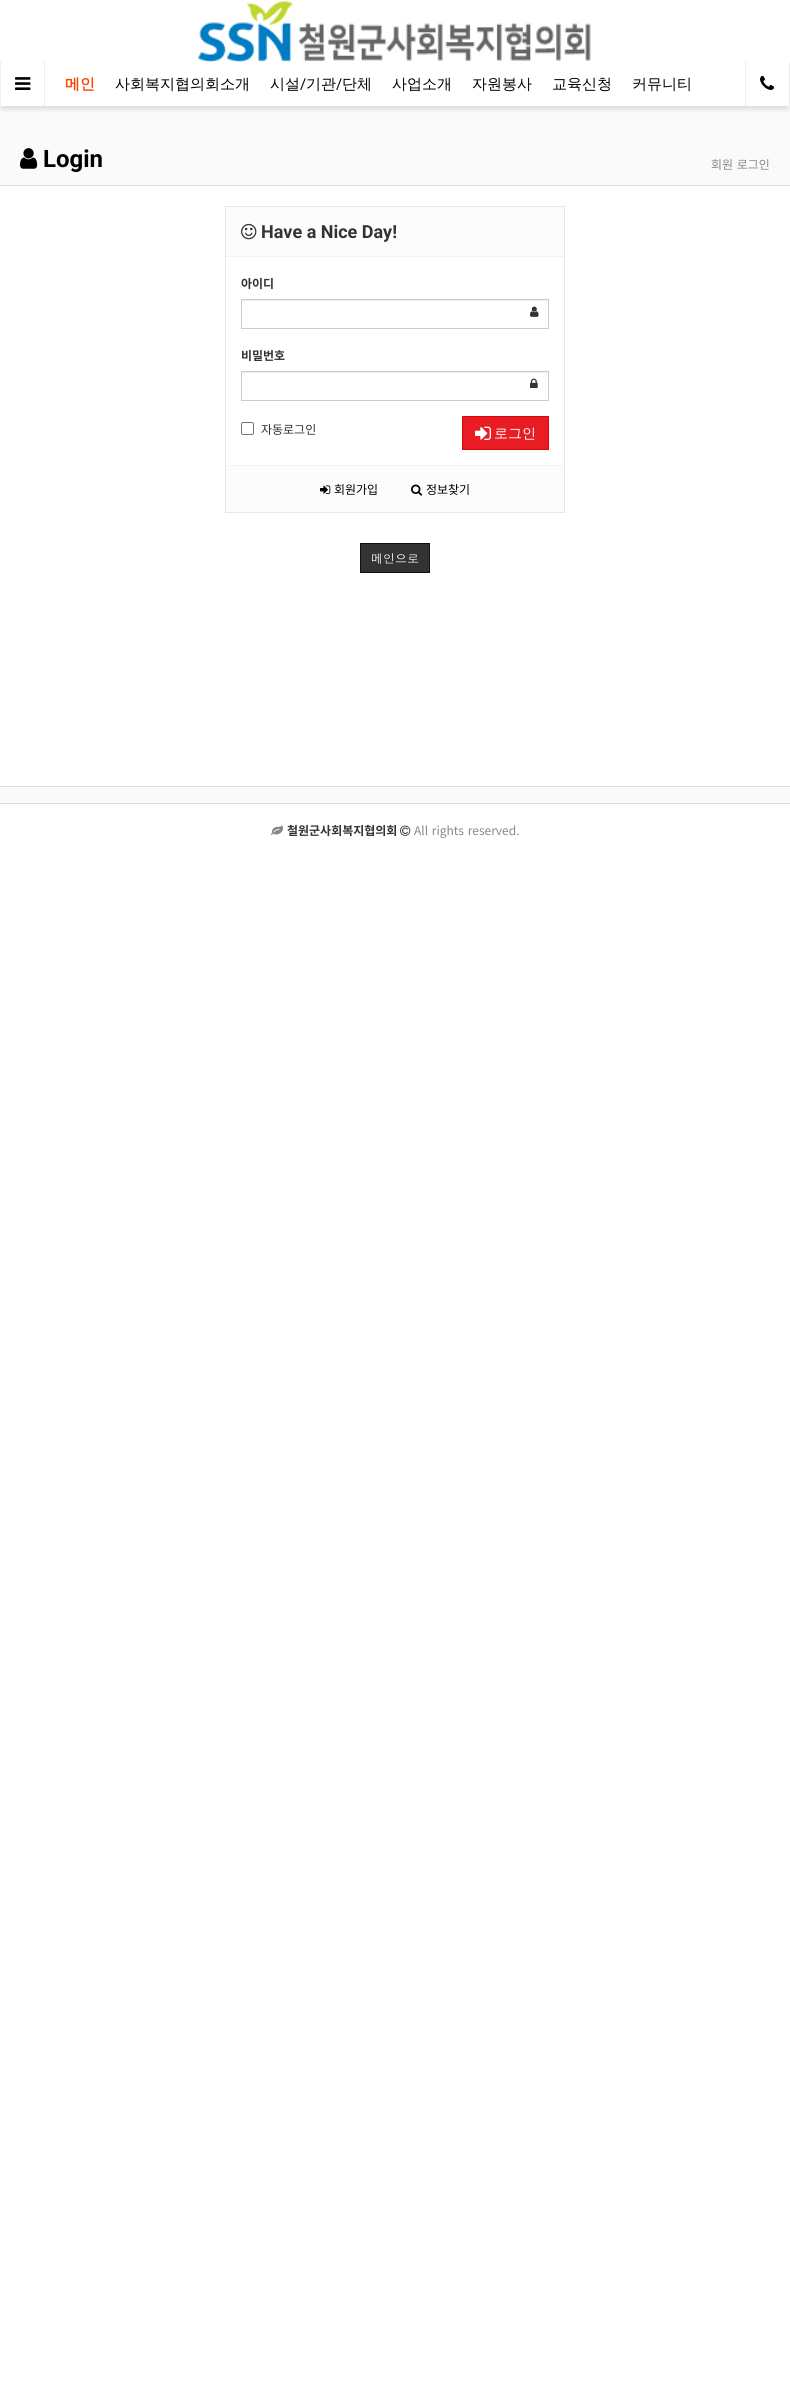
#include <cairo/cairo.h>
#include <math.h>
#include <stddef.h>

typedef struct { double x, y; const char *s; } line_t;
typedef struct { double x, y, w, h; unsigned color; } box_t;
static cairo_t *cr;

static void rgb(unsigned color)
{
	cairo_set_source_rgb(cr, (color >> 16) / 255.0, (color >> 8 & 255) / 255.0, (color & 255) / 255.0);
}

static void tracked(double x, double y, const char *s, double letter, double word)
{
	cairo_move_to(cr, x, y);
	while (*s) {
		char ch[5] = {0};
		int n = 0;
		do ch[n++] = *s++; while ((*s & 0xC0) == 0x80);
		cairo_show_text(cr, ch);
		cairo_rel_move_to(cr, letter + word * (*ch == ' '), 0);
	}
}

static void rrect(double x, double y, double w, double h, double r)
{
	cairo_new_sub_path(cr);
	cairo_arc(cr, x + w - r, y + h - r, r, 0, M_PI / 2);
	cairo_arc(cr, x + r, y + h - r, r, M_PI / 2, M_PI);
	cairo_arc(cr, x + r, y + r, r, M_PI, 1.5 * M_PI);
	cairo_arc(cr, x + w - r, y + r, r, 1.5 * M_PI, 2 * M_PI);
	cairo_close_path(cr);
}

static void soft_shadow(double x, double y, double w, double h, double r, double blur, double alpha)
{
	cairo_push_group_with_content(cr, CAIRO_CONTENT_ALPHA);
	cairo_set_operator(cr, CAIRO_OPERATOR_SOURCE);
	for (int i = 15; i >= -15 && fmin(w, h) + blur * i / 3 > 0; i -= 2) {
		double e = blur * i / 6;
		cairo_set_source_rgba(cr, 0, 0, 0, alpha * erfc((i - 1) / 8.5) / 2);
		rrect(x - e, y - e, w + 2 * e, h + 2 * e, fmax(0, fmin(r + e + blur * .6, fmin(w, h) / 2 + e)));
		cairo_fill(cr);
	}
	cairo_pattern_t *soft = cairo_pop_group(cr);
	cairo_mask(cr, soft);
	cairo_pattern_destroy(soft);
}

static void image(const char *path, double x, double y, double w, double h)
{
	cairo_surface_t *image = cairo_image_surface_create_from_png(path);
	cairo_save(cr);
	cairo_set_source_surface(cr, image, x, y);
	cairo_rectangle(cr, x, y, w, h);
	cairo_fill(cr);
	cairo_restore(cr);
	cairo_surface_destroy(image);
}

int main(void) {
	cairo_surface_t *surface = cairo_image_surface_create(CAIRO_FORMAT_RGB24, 790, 2396);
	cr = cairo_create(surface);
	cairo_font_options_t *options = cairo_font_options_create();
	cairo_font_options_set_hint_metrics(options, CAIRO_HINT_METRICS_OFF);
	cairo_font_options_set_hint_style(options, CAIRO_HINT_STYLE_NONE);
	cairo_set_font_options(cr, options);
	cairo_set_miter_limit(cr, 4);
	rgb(0xffffff);
	cairo_paint(cr);
	image("img/1.png", 198, 1, 393, 61);
	rgb(0xfafafa);
	cairo_rectangle(cr, 0, 106, 790, 79);
	cairo_fill(cr);
	cairo_save(cr);
	cairo_rectangle(cr, 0, 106, 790, 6);
	cairo_clip(cr);
	rgb(0x191919);
	soft_shadow(2, 69, 786, 40, 0, 2.5, 0.15);
	cairo_restore(cr);
	rgb(0xeeeeee);
	cairo_rectangle(cr, 0, 62, 1, 44);
	cairo_fill(cr);
	image("img/2.png", 15, 77, 16, 13);
	{
		static const box_t items[] = {
			{44, 62, 1, 44, 0xeeeeee},
			{789, 62, 1, 44, 0xeeeeee},
			{745, 62, 1, 44, 0xeeeeee},
		};
		for (size_t i = 0; i < sizeof items / sizeof *items; i++) {
			rgb(items[i].color);
			cairo_rectangle(cr, items[i].x, items[i].y, items[i].w, items[i].h);
			cairo_fill(cr);
		}
	}
	image("img/3.png", 760, 75, 15, 15);
	rgb(0xdfdfdf);
	cairo_rectangle(cr, 0, 185, 790, 1);
	cairo_fill(cr);
	image("img/4.png", 20, 148, 18, 21);
	rgb(0xfcfcfc);
	cairo_rectangle(cr, 225.5, 206.5, 339, 306);
	cairo_fill_preserve(cr);
	rgb(0xe7e7e7);
	cairo_set_line_width(cr, 1);
	cairo_stroke(cr);
	rgb(0xf3f3f3);
	cairo_rectangle(cr, 226, 256, 338, 1);
	cairo_fill(cr);
	image("img/5.png", 241, 223, 16, 17);
	rgb(0xffffff);
	cairo_rectangle(cr, 226, 257, 338, 208);
	cairo_fill(cr);
	rgb(0xececec);
	cairo_rectangle(cr, 242, 300, 306, 1);
	cairo_fill(cr);
	cairo_rectangle(cr, 241.5, 299.5, 307, 29);
	rgb(0xcccccc);
	cairo_stroke(cr);
	image("img/6.png", 530, 306, 9, 11);
	rgb(0xececec);
	cairo_rectangle(cr, 242, 372, 306, 1);
	cairo_fill(cr);
	cairo_rectangle(cr, 241.5, 371.5, 307, 29);
	rgb(0xcccccc);
	cairo_stroke(cr);
	image("img/7.png", 530, 378, 8, 10);
	rrect(241.5, 422.5, 12, 12, 1.5);
	rgb(0x767676);
	cairo_stroke(cr);
	rgb(0xe91b23);
	cairo_rectangle(cr, 462.5, 416.5, 86, 33);
	cairo_fill_preserve(cr);
	rgb(0xd5070f);
	cairo_stroke(cr);
	image("img/8.png", 475, 426, 16, 14);
	rgb(0xf3f3f3);
	cairo_rectangle(cr, 226, 465, 338, 1);
	cairo_fill(cr);
	image("img/9.png", 320, 485, 11, 9);
	image("img/10.png", 411, 484, 12, 12);
	rgb(0x333333);
	cairo_rectangle(cr, 360.5, 543.5, 69, 29);
	cairo_fill_preserve(cr);
	rgb(0x111111);
	cairo_stroke(cr);
	{
		static const box_t items[] = {
			{0, 787, 790, 16, 0xfafafa},
			{0, 786, 790, 1, 0xdddddd},
			{0, 803, 790, 1, 0xdddddd},
		};
		for (size_t i = 0; i < sizeof items / sizeof *items; i++) {
			rgb(items[i].color);
			cairo_rectangle(cr, items[i].x, items[i].y, items[i].w, items[i].h);
			cairo_fill(cr);
		}
	}
	image("img/11.png", 271, 825, 12, 10);
	image("img/12.png", 400, 825, 11, 11);
	cairo_select_font_face(cr, "WenQuanYi Zen Hei", CAIRO_FONT_SLANT_NORMAL, CAIRO_FONT_WEIGHT_BOLD);
	cairo_set_font_size(cr, 15);
	rgb(0xff4500);
	cairo_move_to(cr, 65, 89);
	cairo_show_text(cr, "메인");
	cairo_select_font_face(cr, "WenQuanYi Zen Hei Medium", CAIRO_FONT_SLANT_NORMAL, CAIRO_FONT_WEIGHT_NORMAL);
	rgb(0x000000);
	cairo_move_to(cr, 115, 89);
	cairo_show_text(cr, "사회복지협의회소개");
	cairo_move_to(cr, 270, 89);
	cairo_show_text(cr, "시설");
	cairo_select_font_face(cr, "Roboto", CAIRO_FONT_SLANT_NORMAL, CAIRO_FONT_WEIGHT_NORMAL);
	cairo_move_to(cr, 300, 89);
	cairo_show_text(cr, "/");
	cairo_select_font_face(cr, "WenQuanYi Zen Hei Medium", CAIRO_FONT_SLANT_NORMAL, CAIRO_FONT_WEIGHT_NORMAL);
	cairo_move_to(cr, 306, 89);
	cairo_show_text(cr, "기관");
	cairo_select_font_face(cr, "Roboto", CAIRO_FONT_SLANT_NORMAL, CAIRO_FONT_WEIGHT_NORMAL);
	cairo_move_to(cr, 336, 89);
	cairo_show_text(cr, "/");
	cairo_select_font_face(cr, "WenQuanYi Zen Hei Medium", CAIRO_FONT_SLANT_NORMAL, CAIRO_FONT_WEIGHT_NORMAL);
	{
		static const line_t items[] = {
			{342, 89, "단체"},
			{392, 89, "사업소개"},
			{472, 89, "자원봉사"},
			{552, 89, "교육신청"},
			{632, 89, "커뮤니티"},
		};
		for (size_t i = 0; i < sizeof items / sizeof *items; i++) {
			cairo_move_to(cr, items[i].x, items[i].y);
			cairo_show_text(cr, items[i].s);
		}
	}
	cairo_select_font_face(cr, "Roboto", CAIRO_FONT_SLANT_NORMAL, CAIRO_FONT_WEIGHT_BOLD);
	cairo_set_font_size(cr, 24);
	cairo_move_to(cr, 43, 167);
	cairo_show_text(cr, "Login");
	cairo_select_font_face(cr, "Noto Sans KR", CAIRO_FONT_SLANT_NORMAL, CAIRO_FONT_WEIGHT_NORMAL);
	cairo_set_font_size(cr, 12);
	rgb(0x888888);
	tracked(711, 169, "회원 로그인", 0, 1);
	cairo_select_font_face(cr, "Roboto", CAIRO_FONT_SLANT_NORMAL, CAIRO_FONT_WEIGHT_BOLD);
	cairo_set_font_size(cr, 18);
	rgb(0x333333);
	cairo_move_to(cr, 261, 238);
	cairo_show_text(cr, "Have a Nice Day!");
	cairo_select_font_face(cr, "Noto Sans KR", CAIRO_FONT_SLANT_NORMAL, CAIRO_FONT_WEIGHT_BOLD);
	cairo_set_font_size(cr, 12);
	cairo_move_to(cr, 241, 288);
	cairo_show_text(cr, "아이디");
	cairo_move_to(cr, 241, 360);
	cairo_show_text(cr, "비밀번호");
	cairo_select_font_face(cr, "Noto Sans KR", CAIRO_FONT_SLANT_NORMAL, CAIRO_FONT_WEIGHT_NORMAL);
	cairo_move_to(cr, 261, 434);
	cairo_show_text(cr, "자동로그인");
	cairo_select_font_face(cr, "WenQuanYi Zen Hei Medium", CAIRO_FONT_SLANT_NORMAL, CAIRO_FONT_WEIGHT_NORMAL);
	cairo_set_font_size(cr, 14);
	rgb(0xffffff);
	cairo_move_to(cr, 494, 438);
	cairo_show_text(cr, "로그인");
	cairo_select_font_face(cr, "Noto Sans KR", CAIRO_FONT_SLANT_NORMAL, CAIRO_FONT_WEIGHT_NORMAL);
	cairo_set_font_size(cr, 12);
	rgb(0x000000);
	cairo_move_to(cr, 334, 494);
	cairo_show_text(cr, "회원가입");
	cairo_move_to(cr, 426, 494);
	cairo_show_text(cr, "정보찾기");
	cairo_select_font_face(cr, "Dotum", CAIRO_FONT_SLANT_NORMAL, CAIRO_FONT_WEIGHT_NORMAL);
	rgb(0xffffff);
	cairo_move_to(cr, 371, 563);
	cairo_show_text(cr, "메인으로");
	cairo_select_font_face(cr, "Noto Sans KR", CAIRO_FONT_SLANT_NORMAL, CAIRO_FONT_WEIGHT_BOLD);
	rgb(0x333333);
	cairo_move_to(cr, 287, 835);
	cairo_show_text(cr, "철원군사회복지협의회");
	cairo_select_font_face(cr, "Noto Sans KR", CAIRO_FONT_SLANT_NORMAL, CAIRO_FONT_WEIGHT_NORMAL);
	rgb(0x888888);
	tracked(414, 835, "All rights reserved.", 0, 1);
	cairo_surface_write_to_png(surface, "page.png");
	cairo_font_options_destroy(options);
	cairo_destroy(cr);
	cairo_surface_destroy(surface);
	return 0;
}
